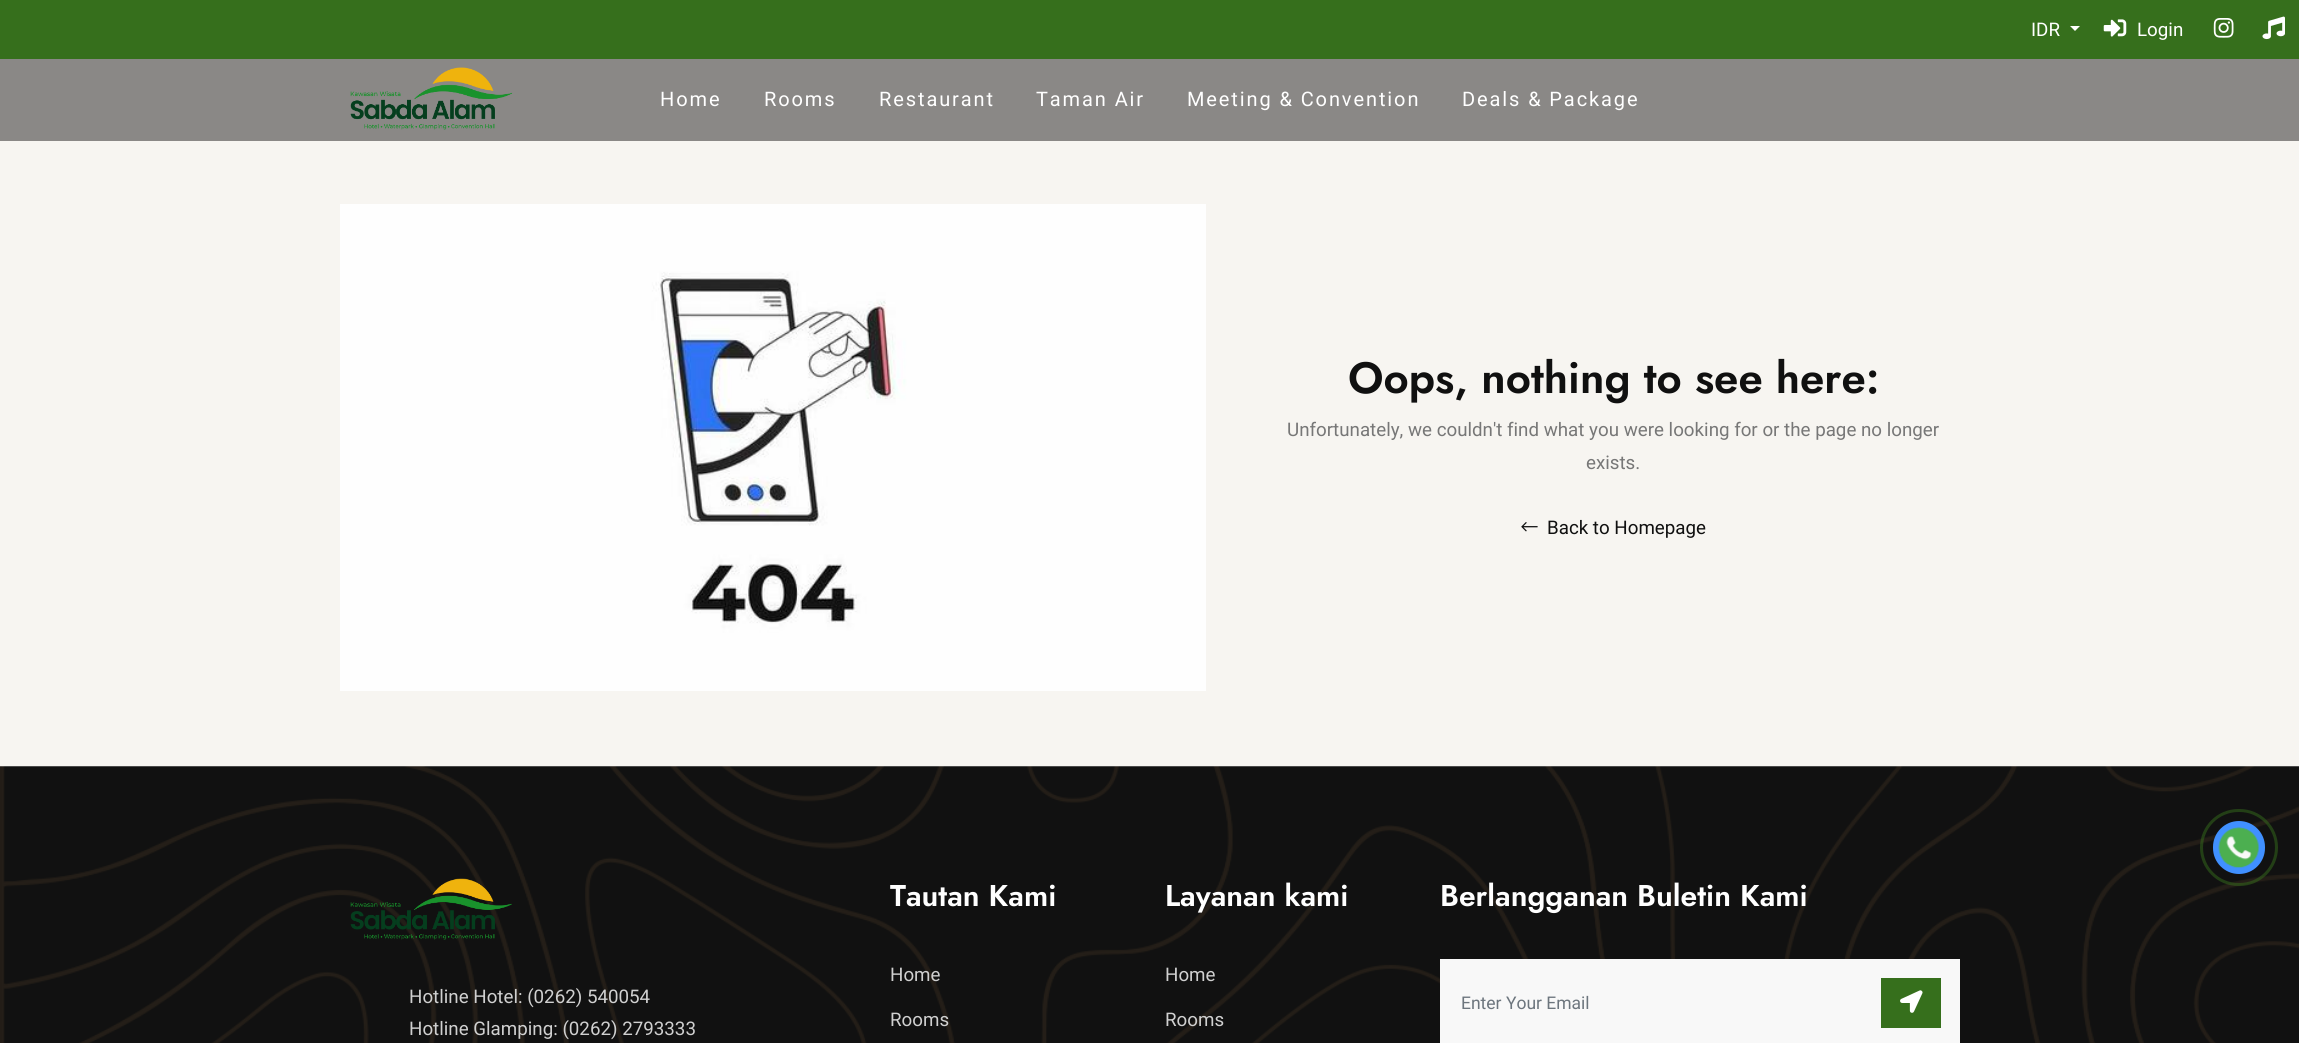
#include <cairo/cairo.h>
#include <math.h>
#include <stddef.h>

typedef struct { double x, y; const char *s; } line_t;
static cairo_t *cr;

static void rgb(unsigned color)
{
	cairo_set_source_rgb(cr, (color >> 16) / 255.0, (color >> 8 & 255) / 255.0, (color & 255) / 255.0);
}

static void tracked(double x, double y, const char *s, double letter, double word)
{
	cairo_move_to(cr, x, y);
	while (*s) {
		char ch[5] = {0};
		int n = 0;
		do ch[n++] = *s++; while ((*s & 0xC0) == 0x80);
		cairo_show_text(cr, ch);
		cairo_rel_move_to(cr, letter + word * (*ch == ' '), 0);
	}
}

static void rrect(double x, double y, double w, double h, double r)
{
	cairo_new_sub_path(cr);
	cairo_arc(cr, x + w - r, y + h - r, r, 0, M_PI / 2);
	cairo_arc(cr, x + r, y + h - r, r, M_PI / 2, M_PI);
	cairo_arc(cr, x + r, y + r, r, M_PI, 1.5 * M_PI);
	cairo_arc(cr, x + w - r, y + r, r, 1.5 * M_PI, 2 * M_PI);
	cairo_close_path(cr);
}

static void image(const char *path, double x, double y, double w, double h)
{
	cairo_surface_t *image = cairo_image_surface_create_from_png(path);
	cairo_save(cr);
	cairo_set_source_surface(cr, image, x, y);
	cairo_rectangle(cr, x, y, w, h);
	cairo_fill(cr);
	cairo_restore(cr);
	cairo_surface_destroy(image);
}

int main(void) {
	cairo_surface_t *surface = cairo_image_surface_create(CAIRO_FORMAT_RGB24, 2299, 1043);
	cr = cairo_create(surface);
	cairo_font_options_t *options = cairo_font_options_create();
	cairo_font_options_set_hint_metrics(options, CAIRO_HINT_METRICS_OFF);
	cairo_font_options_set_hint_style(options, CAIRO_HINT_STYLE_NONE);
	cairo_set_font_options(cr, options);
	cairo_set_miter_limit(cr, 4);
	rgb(0xffffff);
	cairo_paint(cr);
	rgb(0x366f1c);
	cairo_rectangle(cr, 0, 0, 2299, 59);
	cairo_fill(cr);
	rgb(0xffffff);
	cairo_new_path(cr);
	cairo_move_to(cr, 2070, 26);
	cairo_line_to(cr, 2080, 26);
	cairo_line_to(cr, 2075, 31);
	cairo_close_path(cr);
	cairo_fill(cr);
	image("img/1.png", 2103, 19, 24, 18);
	image("img/2.png", 2213, 18, 21, 20);
	image("img/3.png", 2262, 16, 23, 24);
	rgb(0x8a8886);
	cairo_rectangle(cr, 0, 59, 2299, 82);
	cairo_fill(cr);
	image("img/4.png", 350, 67, 163, 63);
	rgb(0xf7f5f1);
	cairo_rectangle(cr, 0, 141, 2299, 625);
	cairo_fill(cr);
	image("img/5.png", 340, 204, 866, 487);
	image("img/6.png", 1521, 522, 17, 10);
	image("img/8.png", 0, 766, 2299, 277);
	rgb(0x4090ff);
	rrect(2213, 821, 52, 53, 26);
	cairo_fill(cr);
	image("img/7.png", 2218, 827, 42, 41);
	rrect(2201.5, 810.5, 75, 74, 37);
	cairo_set_source_rgba(cr, 0.212, 0.435, 0.11, 0.5);
	cairo_set_line_width(cr, 3);
	cairo_stroke(cr);
	image("img/9.png", 350, 878, 162, 62);
	rgb(0xf8f8f8);
	cairo_rectangle(cr, 1440, 959, 520, 84);
	cairo_fill(cr);
	rgb(0x366f1c);
	cairo_rectangle(cr, 1881, 978, 60, 50);
	cairo_fill(cr);
	image("img/10.png", 1900, 990, 23, 23);
	cairo_select_font_face(cr, "Roboto", CAIRO_FONT_SLANT_NORMAL, CAIRO_FONT_WEIGHT_NORMAL);
	cairo_set_font_size(cr, 18.75);
	rgb(0xffffff);
	cairo_move_to(cr, 2031, 36);
	cairo_show_text(cr, "IDR");
	cairo_move_to(cr, 2137, 36);
	cairo_show_text(cr, "Login");
	cairo_set_font_size(cr, 20);
	{
		static const line_t items[] = {
			{660, 106, "Home"},
			{764, 106, "Rooms"},
			{879, 106, "Restaurant"},
			{1036, 106, "Taman Air"},
			{1187, 106, "Meeting & Convention"},
			{1462, 106, "Deals & Package"},
		};
		for (size_t i = 0; i < sizeof items / sizeof *items; i++) {
			tracked(items[i].x, items[i].y, items[i].s, 1.9, 0);
		}
	}
	cairo_select_font_face(cr, "Jost SemiBold", CAIRO_FONT_SLANT_NORMAL, CAIRO_FONT_WEIGHT_NORMAL);
	cairo_set_font_size(cr, 43.75);
	rgb(0x101010);
	cairo_move_to(cr, 1348, 393);
	cairo_show_text(cr, "Oops, nothing to see here:");
	cairo_select_font_face(cr, "Roboto", CAIRO_FONT_SLANT_NORMAL, CAIRO_FONT_WEIGHT_NORMAL);
	cairo_set_font_size(cr, 18.75);
	rgb(0x777777);
	cairo_move_to(cr, 1287, 436);
	cairo_show_text(cr, "Unfortunately, we couldn't find what you were looking for or the page no longer");
	cairo_move_to(cr, 1586, 469);
	cairo_show_text(cr, "exists.");
	rgb(0x101010);
	cairo_move_to(cr, 1547, 534);
	cairo_show_text(cr, "Back to Homepage");
	rgb(0xd0d0d0);
	cairo_move_to(cr, 409, 1003);
	cairo_show_text(cr, "Hotline Hotel: (0262) 540054");
	cairo_move_to(cr, 409, 1035);
	cairo_show_text(cr, "Hotline Glamping: (0262) 2793333");
	cairo_select_font_face(cr, "Jost SemiBold", CAIRO_FONT_SLANT_NORMAL, CAIRO_FONT_WEIGHT_NORMAL);
	cairo_set_font_size(cr, 30);
	rgb(0xffffff);
	cairo_move_to(cr, 890, 906);
	cairo_show_text(cr, "Tautan Kami");
	cairo_select_font_face(cr, "Roboto", CAIRO_FONT_SLANT_NORMAL, CAIRO_FONT_WEIGHT_NORMAL);
	cairo_set_font_size(cr, 18.75);
	rgb(0xd0d0d0);
	cairo_move_to(cr, 890, 981);
	cairo_show_text(cr, "Home");
	cairo_move_to(cr, 890, 1026);
	cairo_show_text(cr, "Rooms");
	cairo_select_font_face(cr, "Jost SemiBold", CAIRO_FONT_SLANT_NORMAL, CAIRO_FONT_WEIGHT_NORMAL);
	cairo_set_font_size(cr, 30);
	rgb(0xffffff);
	cairo_move_to(cr, 1165, 906);
	cairo_show_text(cr, "Layanan kami");
	cairo_select_font_face(cr, "Roboto", CAIRO_FONT_SLANT_NORMAL, CAIRO_FONT_WEIGHT_NORMAL);
	cairo_set_font_size(cr, 18.75);
	rgb(0xd0d0d0);
	cairo_move_to(cr, 1165, 981);
	cairo_show_text(cr, "Home");
	cairo_move_to(cr, 1165, 1026);
	cairo_show_text(cr, "Rooms");
	cairo_select_font_face(cr, "Jost SemiBold", CAIRO_FONT_SLANT_NORMAL, CAIRO_FONT_WEIGHT_NORMAL);
	cairo_set_font_size(cr, 30);
	rgb(0xffffff);
	cairo_move_to(cr, 1440, 906);
	cairo_show_text(cr, "Berlangganan Buletin Kami");
	cairo_select_font_face(cr, "Roboto", CAIRO_FONT_SLANT_NORMAL, CAIRO_FONT_WEIGHT_NORMAL);
	cairo_set_font_size(cr, 17.5);
	rgb(0x6c757d);
	cairo_move_to(cr, 1461, 1009);
	cairo_show_text(cr, "Enter Your Email");
	cairo_surface_write_to_png(surface, "page.png");
	cairo_font_options_destroy(options);
	cairo_destroy(cr);
	cairo_surface_destroy(surface);
	return 0;
}
